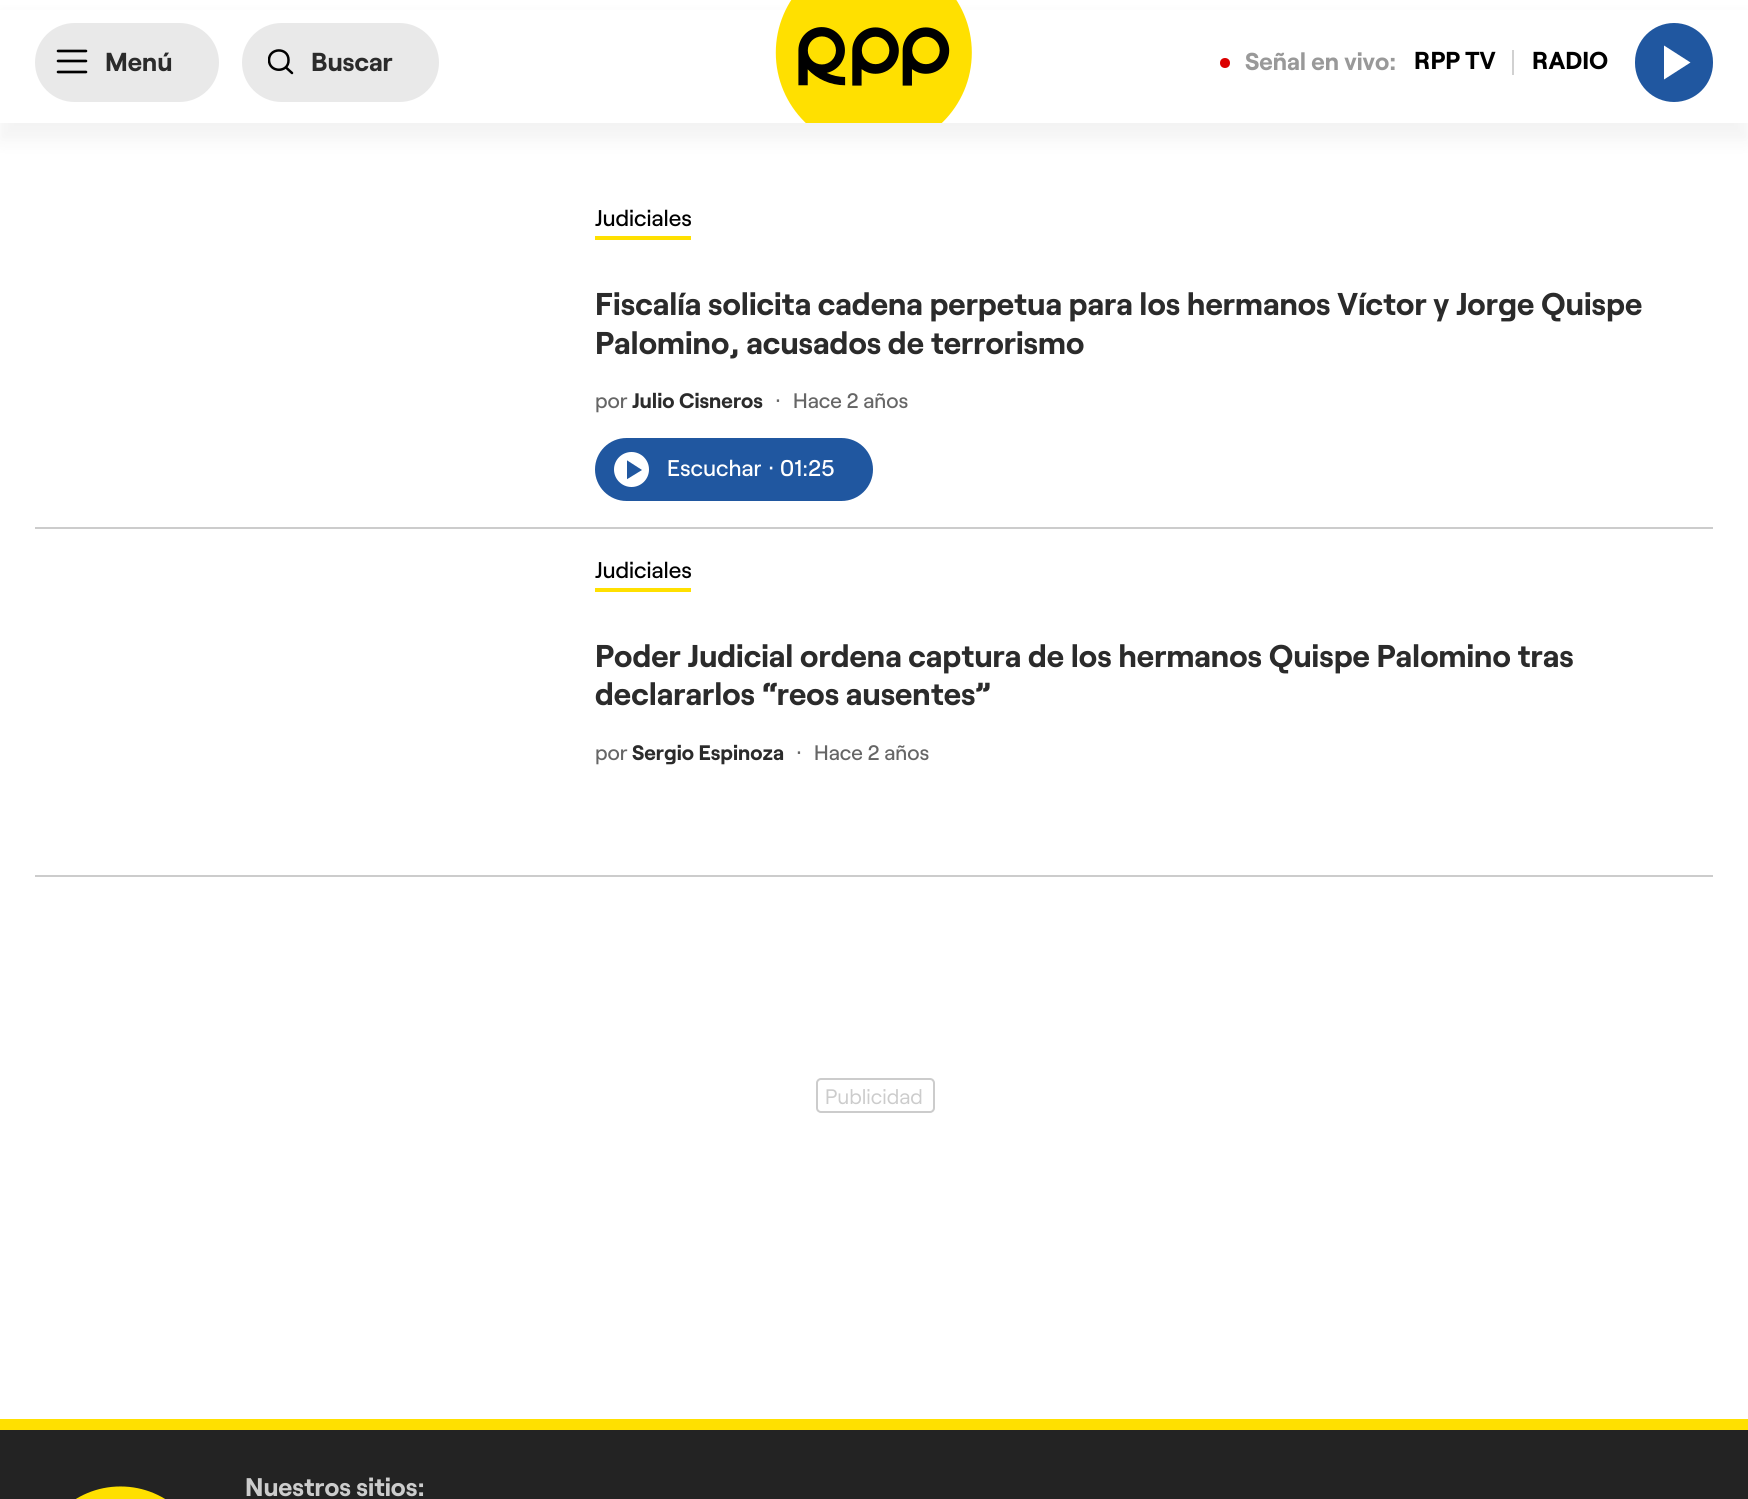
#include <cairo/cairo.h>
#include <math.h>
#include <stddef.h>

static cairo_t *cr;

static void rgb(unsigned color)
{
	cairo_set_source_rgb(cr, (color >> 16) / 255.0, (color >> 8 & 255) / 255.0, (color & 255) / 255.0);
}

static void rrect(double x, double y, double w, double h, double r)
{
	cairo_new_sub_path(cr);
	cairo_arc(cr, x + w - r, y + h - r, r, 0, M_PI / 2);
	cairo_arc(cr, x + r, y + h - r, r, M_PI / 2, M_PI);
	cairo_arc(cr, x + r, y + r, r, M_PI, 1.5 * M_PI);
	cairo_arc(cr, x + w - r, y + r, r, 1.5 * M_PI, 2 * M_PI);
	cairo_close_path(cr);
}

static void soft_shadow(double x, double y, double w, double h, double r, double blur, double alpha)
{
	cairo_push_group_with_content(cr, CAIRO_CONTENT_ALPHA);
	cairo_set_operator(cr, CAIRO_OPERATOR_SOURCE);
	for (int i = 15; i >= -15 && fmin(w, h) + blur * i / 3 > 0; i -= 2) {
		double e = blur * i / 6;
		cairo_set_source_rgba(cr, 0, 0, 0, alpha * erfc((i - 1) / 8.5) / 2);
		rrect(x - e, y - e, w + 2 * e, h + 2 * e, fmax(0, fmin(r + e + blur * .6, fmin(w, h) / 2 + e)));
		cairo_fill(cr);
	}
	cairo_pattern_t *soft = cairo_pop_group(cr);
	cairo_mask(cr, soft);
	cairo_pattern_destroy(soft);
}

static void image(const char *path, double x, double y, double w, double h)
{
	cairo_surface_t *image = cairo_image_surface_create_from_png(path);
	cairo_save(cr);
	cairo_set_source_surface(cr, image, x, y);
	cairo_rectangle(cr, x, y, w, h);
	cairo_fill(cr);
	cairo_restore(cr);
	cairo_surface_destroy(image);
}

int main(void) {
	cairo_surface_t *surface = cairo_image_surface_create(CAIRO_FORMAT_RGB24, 1748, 1499);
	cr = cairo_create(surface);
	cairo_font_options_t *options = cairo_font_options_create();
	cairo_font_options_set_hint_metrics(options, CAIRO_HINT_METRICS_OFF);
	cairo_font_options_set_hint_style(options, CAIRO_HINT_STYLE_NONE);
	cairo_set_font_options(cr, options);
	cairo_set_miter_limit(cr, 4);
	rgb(0xffffff);
	cairo_paint(cr);
	rgb(0x000000);
	soft_shadow(0, 18, 1748, 122, 0, 9, 0.05);
	rgb(0xffffff);
	cairo_rectangle(cr, 0, 10, 1748, 113);
	cairo_fill(cr);
	rgb(0xe9e9e9);
	rrect(35, 23, 184, 79, 39.5);
	cairo_fill(cr);
	cairo_new_path(cr);
	cairo_move_to(cr, 58, 51);
	cairo_line_to(cr, 86, 51);
	cairo_move_to(cr, 58, 61);
	cairo_line_to(cr, 86, 61);
	cairo_move_to(cr, 58, 72);
	cairo_line_to(cr, 86, 72);
	rgb(0x000000);
	cairo_set_line_width(cr, 2.6);
	cairo_set_line_cap(cr, CAIRO_LINE_CAP_ROUND);
	cairo_set_line_join(cr, CAIRO_LINE_JOIN_ROUND);
	cairo_stroke(cr);
	rgb(0xe9e9e9);
	rrect(242, 23, 197, 79, 39.5);
	cairo_fill(cr);
	cairo_save(cr);
	cairo_rectangle(cr, 268, 49, 26, 26);
	cairo_clip(cr);
	cairo_new_path(cr);
	cairo_move_to(cr, 286, 67.5);
	cairo_line_to(cr, 292, 73);
	cairo_move_to(cr, 269, 60);
	cairo_curve_to(cr, 269, 73, 289, 73, 288.5, 60);
	cairo_curve_to(cr, 288.5, 47, 269, 47.5, 269, 60);
	cairo_close_path(cr);
	rgb(0x000000);
	cairo_set_line_width(cr, 2.5);
	cairo_stroke(cr);
	cairo_restore(cr);
	image("img/1.png", 775, 0, 197, 123);
	rgb(0xdb0000);
	cairo_arc(cr, 1225, 63, 5, 0, 2 * M_PI);
	cairo_fill(cr);
	rgb(0xd1d1d1);
	cairo_rectangle(cr, 1512, 50, 2, 25);
	cairo_fill(cr);
	rgb(0x2057a0);
	rrect(1635, 23, 78, 79, 39);
	cairo_fill(cr);
	rgb(0xffffff);
	cairo_new_path(cr);
	cairo_move_to(cr, 1664, 45.5);
	cairo_line_to(cr, 1664, 79.5);
	cairo_line_to(cr, 1690.5, 62.5);
	cairo_close_path(cr);
	cairo_fill(cr);
	rgb(0xcccccc);
	cairo_rectangle(cr, 35, 527, 1678, 2);
	cairo_fill(cr);
	rgb(0xffe000);
	cairo_rectangle(cr, 595, 236, 96, 4);
	cairo_fill(cr);
	rgb(0x2057a0);
	rrect(595, 438, 278, 63, 31.5);
	cairo_fill(cr);
	rgb(0xffffff);
	cairo_arc(cr, 631.5, 469.5, 17.5, 0, 2 * M_PI);
	cairo_fill(cr);
	cairo_save(cr);
	cairo_rectangle(cr, 627, 460, 15, 20);
	cairo_clip(cr);
	rgb(0x2057a0);
	cairo_new_path(cr);
	cairo_move_to(cr, 626.5, 460);
	cairo_line_to(cr, 626.5, 479.5);
	cairo_line_to(cr, 642, 470);
	cairo_close_path(cr);
	cairo_fill(cr);
	cairo_restore(cr);
	rgb(0xcccccc);
	cairo_rectangle(cr, 35, 875, 1678, 2);
	cairo_fill(cr);
	rgb(0xffe000);
	cairo_rectangle(cr, 595, 588, 96, 4);
	cairo_fill(cr);
	rrect(817, 1079, 117, 33, 4);
	rgb(0xcccccc);
	cairo_set_line_width(cr, 2);
	cairo_set_line_cap(cr, CAIRO_LINE_CAP_BUTT);
	cairo_set_line_join(cr, CAIRO_LINE_JOIN_MITER);
	cairo_stroke(cr);
	rgb(0x232323);
	cairo_rectangle(cr, 0, 1430, 1748, 69);
	cairo_fill(cr);
	rgb(0xffe000);
	cairo_rectangle(cr, 0, 1419, 1748, 11);
	cairo_fill(cr);
	image("img/2.png", 76, 1486, 89, 13);
	cairo_select_font_face(cr, "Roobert", CAIRO_FONT_SLANT_NORMAL, CAIRO_FONT_WEIGHT_BOLD);
	cairo_set_font_size(cr, 26);
	rgb(0x2b2b2b);
	cairo_move_to(cr, 105, 71);
	cairo_show_text(cr, "Menú");
	cairo_move_to(cr, 311, 71);
	cairo_show_text(cr, "Buscar");
	cairo_set_font_size(cr, 24.5);
	rgb(0x999999);
	cairo_move_to(cr, 1245, 70);
	cairo_show_text(cr, "Señal en vivo:");
	rgb(0x000000);
	cairo_move_to(cr, 1414, 69);
	cairo_show_text(cr, "RPP TV");
	cairo_move_to(cr, 1532, 69);
	cairo_show_text(cr, "RADIO");
	cairo_select_font_face(cr, "Roobert Medium", CAIRO_FONT_SLANT_NORMAL, CAIRO_FONT_WEIGHT_NORMAL);
	cairo_set_font_size(cr, 22.75);
	cairo_move_to(cr, 595, 226);
	cairo_show_text(cr, "Judiciales");
	cairo_select_font_face(cr, "Roobert", CAIRO_FONT_SLANT_NORMAL, CAIRO_FONT_WEIGHT_BOLD);
	cairo_set_font_size(cr, 31.5);
	rgb(0x2b2b2b);
	cairo_move_to(cr, 595, 315);
	cairo_show_text(cr, "Fiscalía solicita cadena perpetua para los hermanos Víctor y Jorge Quispe");
	cairo_move_to(cr, 595, 354);
	cairo_show_text(cr, "Palomino, acusados de terrorismo");
	cairo_select_font_face(cr, "Roobert Medium", CAIRO_FONT_SLANT_NORMAL, CAIRO_FONT_WEIGHT_NORMAL);
	cairo_set_font_size(cr, 21);
	rgb(0x666666);
	cairo_move_to(cr, 595, 408);
	cairo_show_text(cr, "por");
	cairo_select_font_face(cr, "Roobert", CAIRO_FONT_SLANT_NORMAL, CAIRO_FONT_WEIGHT_BOLD);
	rgb(0x2b2b2b);
	cairo_move_to(cr, 632, 408);
	cairo_show_text(cr, "Julio Cisneros");
	cairo_select_font_face(cr, "Roobert Medium", CAIRO_FONT_SLANT_NORMAL, CAIRO_FONT_WEIGHT_NORMAL);
	rgb(0x666666);
	cairo_move_to(cr, 776, 408);
	cairo_show_text(cr, "·");
	cairo_move_to(cr, 793, 408);
	cairo_show_text(cr, "Hace 2 años");
	cairo_save(cr);
	cairo_rectangle(cr, 667, 452, 94, 35);
	cairo_clip(cr);
	cairo_set_font_size(cr, 22.75);
	rgb(0xffffff);
	cairo_move_to(cr, 667, 476);
	cairo_show_text(cr, "Escuchar");
	cairo_restore(cr);
	cairo_set_font_size(cr, 22.75);
	rgb(0xffffff);
	cairo_move_to(cr, 769, 476);
	cairo_show_text(cr, "· 01:25");
	rgb(0x000000);
	cairo_move_to(cr, 595, 578);
	cairo_show_text(cr, "Judiciales");
	cairo_select_font_face(cr, "Roobert", CAIRO_FONT_SLANT_NORMAL, CAIRO_FONT_WEIGHT_BOLD);
	cairo_set_font_size(cr, 31.5);
	rgb(0x2b2b2b);
	cairo_move_to(cr, 595, 667);
	cairo_show_text(cr, "Poder Judicial ordena captura de los hermanos Quispe Palomino tras");
	cairo_move_to(cr, 595, 705);
	cairo_show_text(cr, "declararlos “reos ausentes”");
	cairo_select_font_face(cr, "Roobert Medium", CAIRO_FONT_SLANT_NORMAL, CAIRO_FONT_WEIGHT_NORMAL);
	cairo_set_font_size(cr, 21);
	rgb(0x666666);
	cairo_move_to(cr, 595, 760);
	cairo_show_text(cr, "por");
	cairo_select_font_face(cr, "Roobert", CAIRO_FONT_SLANT_NORMAL, CAIRO_FONT_WEIGHT_BOLD);
	rgb(0x2b2b2b);
	cairo_move_to(cr, 632, 760);
	cairo_show_text(cr, "Sergio Espinoza");
	cairo_select_font_face(cr, "Roobert Medium", CAIRO_FONT_SLANT_NORMAL, CAIRO_FONT_WEIGHT_NORMAL);
	rgb(0x666666);
	cairo_move_to(cr, 797, 760);
	cairo_show_text(cr, "·");
	cairo_move_to(cr, 814, 760);
	cairo_show_text(cr, "Hace 2 años");
	cairo_select_font_face(cr, "Roobert", CAIRO_FONT_SLANT_NORMAL, CAIRO_FONT_WEIGHT_NORMAL);
	rgb(0xcccccc);
	cairo_move_to(cr, 825, 1104);
	cairo_show_text(cr, "Publicidad");
	cairo_select_font_face(cr, "Roobert", CAIRO_FONT_SLANT_NORMAL, CAIRO_FONT_WEIGHT_BOLD);
	cairo_set_font_size(cr, 25.5);
	cairo_move_to(cr, 245, 1496);
	cairo_show_text(cr, "Nuestros sitios:");
	cairo_surface_write_to_png(surface, "page.png");
	cairo_font_options_destroy(options);
	cairo_destroy(cr);
	cairo_surface_destroy(surface);
	return 0;
}
